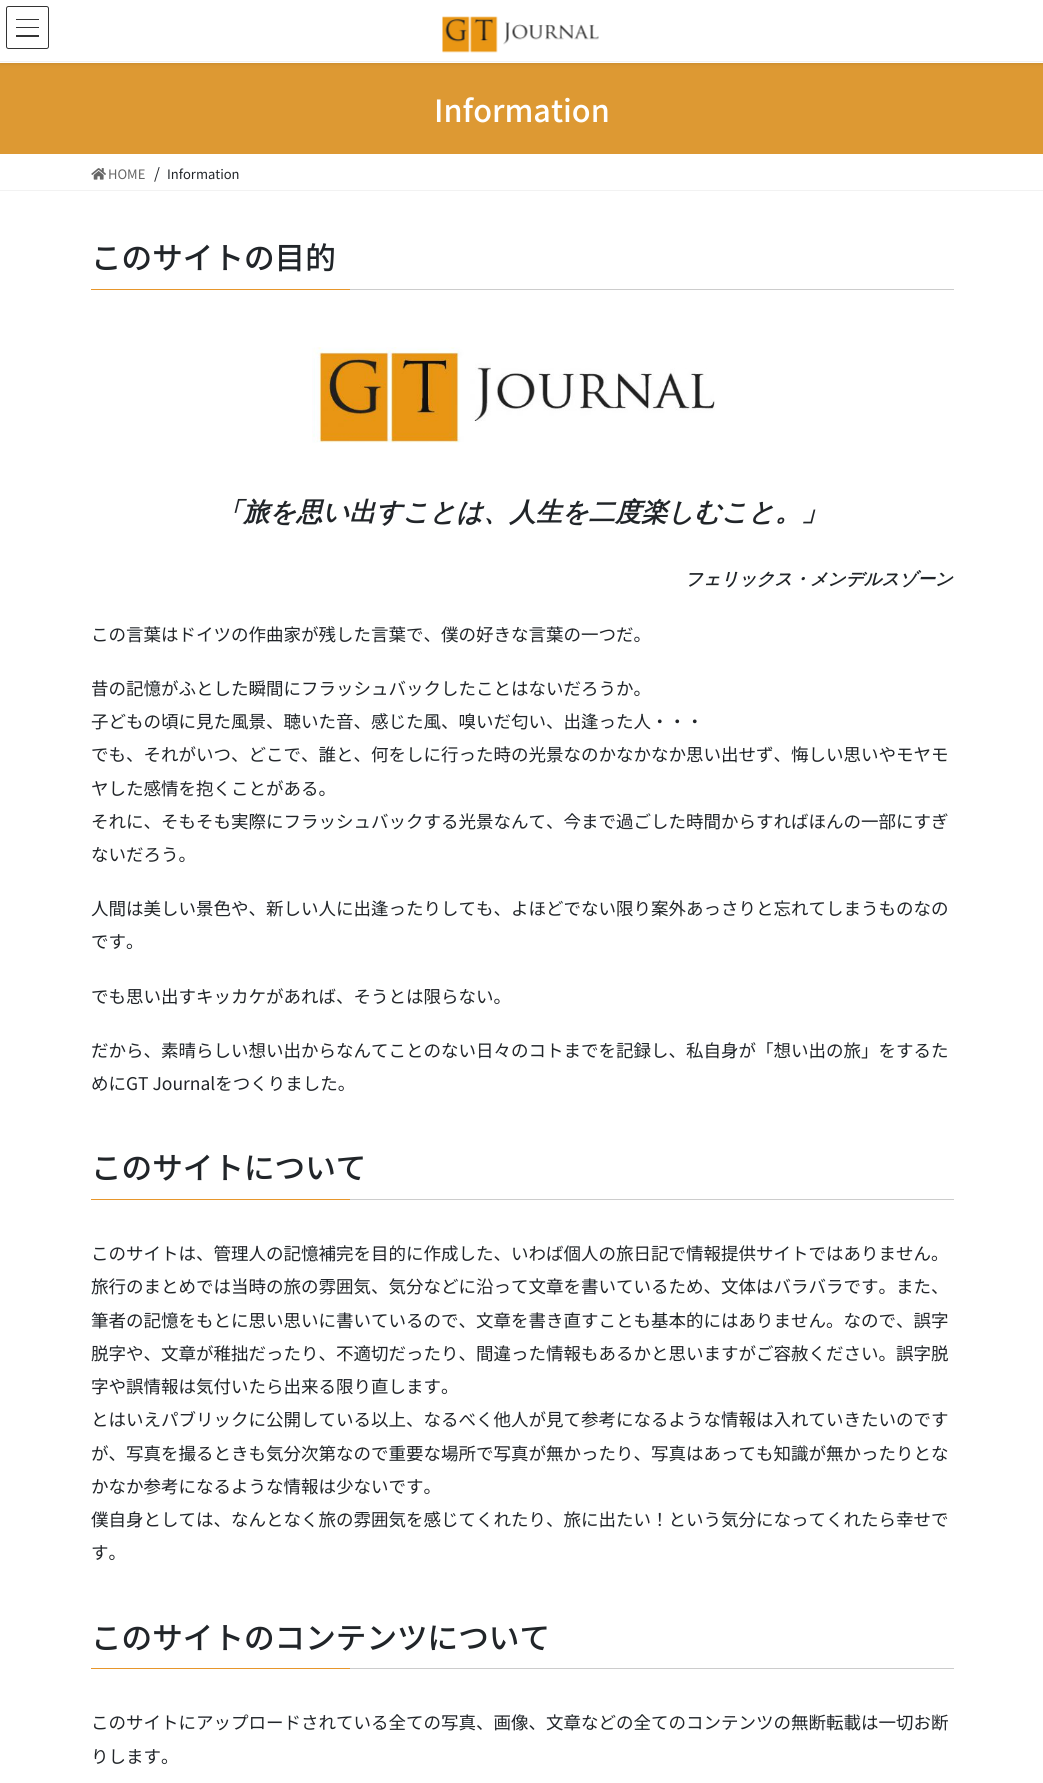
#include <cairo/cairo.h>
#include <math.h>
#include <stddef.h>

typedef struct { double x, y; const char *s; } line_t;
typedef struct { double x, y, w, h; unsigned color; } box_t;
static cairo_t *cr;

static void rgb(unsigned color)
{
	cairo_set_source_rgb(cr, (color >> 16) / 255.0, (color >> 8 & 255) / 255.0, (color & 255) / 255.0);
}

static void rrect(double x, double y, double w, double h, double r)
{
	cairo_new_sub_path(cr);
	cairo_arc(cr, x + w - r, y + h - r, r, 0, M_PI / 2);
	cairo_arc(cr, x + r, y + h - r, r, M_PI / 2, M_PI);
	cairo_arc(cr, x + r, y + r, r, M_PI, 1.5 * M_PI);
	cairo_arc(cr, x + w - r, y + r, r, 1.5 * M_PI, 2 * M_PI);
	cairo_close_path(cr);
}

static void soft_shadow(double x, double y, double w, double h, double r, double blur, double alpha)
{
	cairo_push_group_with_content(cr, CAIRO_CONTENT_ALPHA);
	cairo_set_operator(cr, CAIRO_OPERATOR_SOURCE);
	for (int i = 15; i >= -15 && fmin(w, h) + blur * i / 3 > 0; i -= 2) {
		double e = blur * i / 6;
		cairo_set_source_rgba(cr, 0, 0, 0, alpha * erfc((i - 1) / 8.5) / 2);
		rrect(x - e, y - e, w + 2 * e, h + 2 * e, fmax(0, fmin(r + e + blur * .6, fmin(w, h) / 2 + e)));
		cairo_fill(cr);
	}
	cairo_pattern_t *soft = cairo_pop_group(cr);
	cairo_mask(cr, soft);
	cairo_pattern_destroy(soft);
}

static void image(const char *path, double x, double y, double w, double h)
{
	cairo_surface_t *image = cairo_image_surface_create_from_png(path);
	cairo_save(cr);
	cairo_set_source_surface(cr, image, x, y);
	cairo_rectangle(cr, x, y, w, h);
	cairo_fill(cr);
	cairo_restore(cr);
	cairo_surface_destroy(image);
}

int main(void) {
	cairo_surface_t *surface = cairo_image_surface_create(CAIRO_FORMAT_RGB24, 1043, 1783);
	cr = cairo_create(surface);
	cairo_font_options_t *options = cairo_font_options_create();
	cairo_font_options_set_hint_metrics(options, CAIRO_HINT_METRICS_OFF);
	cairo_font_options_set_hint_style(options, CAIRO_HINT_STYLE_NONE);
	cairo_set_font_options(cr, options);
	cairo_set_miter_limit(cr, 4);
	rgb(0xffffff);
	cairo_paint(cr);
	rgb(0xdd9933);
	cairo_rectangle(cr, 0, 63, 1043, 91);
	cairo_fill(cr);
	rgb(0x000000);
	soft_shadow(0, 1, 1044, 63, 0, 2, 0.1);
	rgb(0xffffff);
	cairo_rectangle(cr, 0, 0, 1043, 63);
	cairo_fill(cr);
	rgb(0xf2f2f2);
	cairo_rectangle(cr, 0, 61, 1043, 1);
	cairo_fill(cr);
	image("img/1.png", 442, 16, 157, 37);
	{
		static const box_t items[] = {
			{16, 19, 23, 1, 0x333333},
			{16, 27, 23, 1, 0x333333},
			{16, 35, 23, 2, 0x333333},
		};
		for (size_t i = 0; i < sizeof items / sizeof *items; i++) {
			rgb(items[i].color);
			cairo_rectangle(cr, items[i].x, items[i].y, items[i].w, items[i].h);
			cairo_fill(cr);
		}
	}
	rrect(6.5, 6.5, 42, 42, 2);
	cairo_set_line_width(cr, 1);
	cairo_stroke(cr);
	rgb(0xf2f2f2);
	cairo_rectangle(cr, 0, 190, 1043, 1);
	cairo_fill(cr);
	image("img/2.png", 91, 168, 15, 12);
	rgb(0xcccccc);
	cairo_rectangle(cr, 350, 289, 604, 1);
	cairo_fill(cr);
	rgb(0xe7962b);
	cairo_rectangle(cr, 91, 289, 259, 1);
	cairo_fill(cr);
	image("img/3.png", 312, 347, 403, 96);
	{
		static const box_t items[] = {
			{350, 1199, 604, 1, 0xcccccc},
			{91, 1199, 259, 1, 0xe7962b},
			{350, 1668, 604, 1, 0xcccccc},
			{91, 1668, 259, 1, 0xe7962b},
		};
		for (size_t i = 0; i < sizeof items / sizeof *items; i++) {
			rgb(items[i].color);
			cairo_rectangle(cr, items[i].x, items[i].y, items[i].w, items[i].h);
			cairo_fill(cr);
		}
	}
	cairo_select_font_face(cr, "Noto Sans JP Medium", CAIRO_FONT_SLANT_NORMAL, CAIRO_FONT_WEIGHT_NORMAL);
	cairo_set_font_size(cr, 30.6);
	rgb(0xffffff);
	cairo_move_to(cr, 434, 122);
	cairo_show_text(cr, "Information");
	cairo_select_font_face(cr, "Noto Sans JP", CAIRO_FONT_SLANT_NORMAL, CAIRO_FONT_WEIGHT_NORMAL);
	cairo_set_font_size(cr, 13);
	rgb(0x666666);
	cairo_move_to(cr, 108, 179);
	cairo_show_text(cr, "HOME");
	cairo_set_font_size(cr, 15);
	rgb(0x212529);
	cairo_move_to(cr, 154, 179);
	cairo_show_text(cr, "/");
	cairo_set_font_size(cr, 13);
	cairo_move_to(cr, 167, 179);
	cairo_show_text(cr, "Information");
	cairo_select_font_face(cr, "Noto Sans JP Medium", CAIRO_FONT_SLANT_NORMAL, CAIRO_FONT_WEIGHT_NORMAL);
	cairo_set_font_size(cr, 30.6);
	cairo_move_to(cr, 91, 269);
	cairo_show_text(cr, "このサイトの目的");
	cairo_select_font_face(cr, "WenQuanYi Zen Hei", CAIRO_FONT_SLANT_ITALIC, CAIRO_FONT_WEIGHT_BOLD);
	cairo_set_font_size(cr, 26.25);
	cairo_move_to(cr, 217, 521);
	cairo_show_text(cr, "「旅を思い出すことは、人生を二度楽しむこと。」");
	cairo_set_font_size(cr, 17.5);
	cairo_move_to(cr, 685, 585);
	cairo_show_text(cr, "フェリックス・メンデルスゾーン");
	cairo_select_font_face(cr, "Noto Sans JP", CAIRO_FONT_SLANT_NORMAL, CAIRO_FONT_WEIGHT_NORMAL);
	{
		static const line_t items[] = {
			{91, 641, "この言葉はドイツの作曲家が残した言葉で、僕の好きな言葉の一つだ。"},
			{91, 695, "昔の記憶がふとした瞬間にフラッシュバックしたことはないだろうか。"},
			{91, 728, "子どもの頃に見た風景、聴いた音、感じた風、嗅いだ匂い、出逢った人・・・"},
			{91, 761, "でも、それがいつ、どこで、誰と、何をしに行った時の光景なのかなかなか思い出せず、悔しい思いやモヤモ"},
			{91, 795, "ヤした感情を抱くことがある。"},
			{91, 828, "それに、そもそも実際にフラッシュバックする光景なんて、今まで過ごした時間からすればほんの一部にすぎ"},
			{91, 861, "ないだろう。"},
			{91, 915, "人間は美しい景色や、新しい人に出逢ったりしても、よほどでない限り案外あっさりと忘れてしまうものなの"},
			{91, 948, "です。"},
			{91, 1003, "でも思い出すキッカケがあれば、そうとは限らない。"},
			{91, 1057, "だから、素晴らしい想い出からなんてことのない日々のコトまでを記録し、私自身が「想い出の旅」をするた"},
			{91, 1090, "めにGT Journalをつくりました。"},
		};
		for (size_t i = 0; i < sizeof items / sizeof *items; i++) {
			cairo_move_to(cr, items[i].x, items[i].y);
			cairo_show_text(cr, items[i].s);
		}
	}
	cairo_select_font_face(cr, "Noto Sans JP Medium", CAIRO_FONT_SLANT_NORMAL, CAIRO_FONT_WEIGHT_NORMAL);
	cairo_set_font_size(cr, 30.6);
	cairo_move_to(cr, 91, 1179);
	cairo_show_text(cr, "このサイトについて");
	cairo_select_font_face(cr, "Noto Sans JP", CAIRO_FONT_SLANT_NORMAL, CAIRO_FONT_WEIGHT_NORMAL);
	cairo_set_font_size(cr, 17.5);
	{
		static const line_t items[] = {
			{91, 1260, "このサイトは、管理人の記憶補完を目的に作成した、いわば個人の旅日記で情報提供サイトではありません。"},
			{91, 1293, "旅行のまとめでは当時の旅の雰囲気、気分などに沿って文章を書いているため、文体はバラバラです。また、"},
			{91, 1327, "筆者の記憶をもとに思い思いに書いているので、文章を書き直すことも基本的にはありません。なので、誤字"},
			{91, 1360, "脱字や、文章が稚拙だったり、不適切だったり、間違った情報もあるかと思いますがご容赦ください。誤字脱"},
			{91, 1393, "字や誤情報は気付いたら出来る限り直します。"},
			{91, 1426, "とはいえパブリックに公開している以上、なるべく他人が見て参考になるような情報は入れていきたいのです"},
			{91, 1460, "が、写真を撮るときも気分次第なので重要な場所で写真が無かったり、写真はあっても知識が無かったりとな"},
			{91, 1493, "かなか参考になるような情報は少ないです。"},
			{91, 1526, "僕自身としては、なんとなく旅の雰囲気を感じてくれたり、旅に出たい！という気分になってくれたら幸せで"},
			{91, 1559, "す。"},
		};
		for (size_t i = 0; i < sizeof items / sizeof *items; i++) {
			cairo_move_to(cr, items[i].x, items[i].y);
			cairo_show_text(cr, items[i].s);
		}
	}
	cairo_select_font_face(cr, "Noto Sans JP Medium", CAIRO_FONT_SLANT_NORMAL, CAIRO_FONT_WEIGHT_NORMAL);
	cairo_set_font_size(cr, 30.6);
	cairo_move_to(cr, 91, 1649);
	cairo_show_text(cr, "このサイトのコンテンツについて");
	cairo_select_font_face(cr, "Noto Sans JP", CAIRO_FONT_SLANT_NORMAL, CAIRO_FONT_WEIGHT_NORMAL);
	cairo_set_font_size(cr, 17.5);
	cairo_move_to(cr, 91, 1729);
	cairo_show_text(cr, "このサイトにアップロードされている全ての写真、画像、文章などの全てのコンテンツの無断転載は一切お断");
	cairo_move_to(cr, 91, 1763);
	cairo_show_text(cr, "りします。");
	cairo_surface_write_to_png(surface, "page.png");
	cairo_font_options_destroy(options);
	cairo_destroy(cr);
	cairo_surface_destroy(surface);
	return 0;
}
